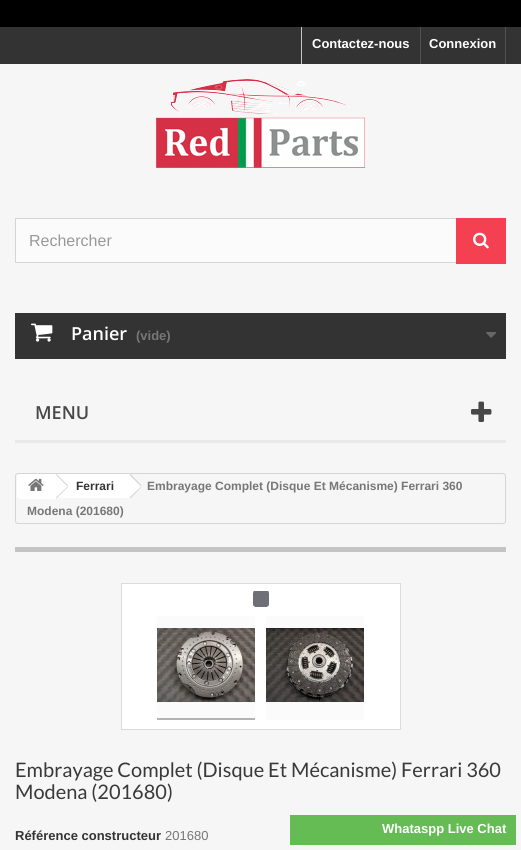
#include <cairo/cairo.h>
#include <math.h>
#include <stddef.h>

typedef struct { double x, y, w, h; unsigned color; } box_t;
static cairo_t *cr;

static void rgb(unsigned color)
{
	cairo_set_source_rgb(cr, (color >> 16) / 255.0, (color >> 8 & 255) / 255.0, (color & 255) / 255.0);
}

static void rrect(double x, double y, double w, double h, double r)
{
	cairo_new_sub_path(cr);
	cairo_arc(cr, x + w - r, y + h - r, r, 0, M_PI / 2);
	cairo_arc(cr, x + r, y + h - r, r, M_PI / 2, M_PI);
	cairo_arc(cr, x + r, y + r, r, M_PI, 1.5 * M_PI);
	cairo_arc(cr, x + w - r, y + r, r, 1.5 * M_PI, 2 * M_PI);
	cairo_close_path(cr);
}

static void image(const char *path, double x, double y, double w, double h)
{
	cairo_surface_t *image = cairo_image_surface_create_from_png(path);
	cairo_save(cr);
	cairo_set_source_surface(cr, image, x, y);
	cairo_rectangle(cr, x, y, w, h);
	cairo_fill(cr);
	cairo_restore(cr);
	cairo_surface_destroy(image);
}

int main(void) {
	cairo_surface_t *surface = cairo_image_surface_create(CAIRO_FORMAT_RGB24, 521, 850);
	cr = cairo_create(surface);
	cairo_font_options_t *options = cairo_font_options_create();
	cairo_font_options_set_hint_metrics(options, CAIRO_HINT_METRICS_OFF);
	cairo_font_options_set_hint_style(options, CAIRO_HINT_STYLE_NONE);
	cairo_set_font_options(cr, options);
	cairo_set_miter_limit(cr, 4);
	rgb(0xf6f6f6);
	cairo_paint(cr);
	{
		static const box_t items[] = {
			{0, 0, 521, 27, 0x000000},
			{0, 27, 521, 37, 0x333333},
			{301, 27, 1, 37, 0xc6c6c6},
			{505, 27, 1, 37, 0x515151},
			{420, 27, 1, 37, 0x515151},
		};
		for (size_t i = 0; i < sizeof items / sizeof *items; i++) {
			rgb(items[i].color);
			cairo_rectangle(cr, items[i].x, items[i].y, items[i].w, items[i].h);
			cairo_fill(cr);
		}
	}
	image("img/1.png", 156, 79, 209, 89);
	rgb(0xfbfbfb);
	cairo_rectangle(cr, 16, 219, 440, 43);
	cairo_fill(cr);
	cairo_rectangle(cr, 15.5, 218.5, 490, 44);
	rgb(0xd6d4d4);
	cairo_set_line_width(cr, 1);
	cairo_stroke(cr);
	rgb(0xf44051);
	cairo_rectangle(cr, 456, 218, 50, 46);
	cairo_fill(cr);
	image("img/2.png", 473, 232, 16, 17);
	rgb(0x333333);
	cairo_rectangle(cr, 15, 313, 491, 46);
	cairo_fill(cr);
	image("img/3.png", 31, 323, 22, 19);
	image("img/4.png", 486, 332, 11, 6);
	rgb(0xe9e9e9);
	cairo_rectangle(cr, 15, 440, 491, 3);
	cairo_fill(cr);
	image("img/5.png", 471, 401, 21, 21);
	rrect(15.5, 473.5, 490, 50, 2.5);
	rgb(0xd6d4d4);
	cairo_stroke(cr);
	rgb(0xffffff);
	cairo_new_path(cr);
	cairo_move_to(cr, 20, 474);
	cairo_line_to(cr, 55, 474);
	cairo_line_to(cr, 55, 499);
	cairo_line_to(cr, 20, 499);
	cairo_curve_to(cr, 18.5, 499, 17, 497.5, 17, 496);
	cairo_line_to(cr, 17, 477);
	cairo_curve_to(cr, 17, 475.5, 18.5, 474, 20, 474);
	cairo_close_path(cr);
	cairo_fill(cr);
	image("img/6.png", 28, 478, 16, 13);
	cairo_rectangle(cr, 55, 474, 74, 24);
	cairo_fill(cr);
	rgb(0xd6d4d4);
	cairo_new_path(cr);
	cairo_move_to(cr, 56.5, 474);
	cairo_line_to(cr, 68, 485.5);
	cairo_line_to(cr, 67.5, 486.5);
	cairo_line_to(cr, 56, 475);
	cairo_close_path(cr);
	cairo_fill(cr);
	cairo_new_path(cr);
	cairo_move_to(cr, 67.5, 486.5);
	cairo_line_to(cr, 68, 487);
	cairo_line_to(cr, 56.5, 498.5);
	cairo_line_to(cr, 56, 497.5);
	cairo_close_path(cr);
	cairo_fill(cr);
	rgb(0xffffff);
	cairo_new_path(cr);
	cairo_move_to(cr, 131, 475);
	cairo_line_to(cr, 141, 485);
	cairo_curve_to(cr, 142, 485.5, 142, 487, 141, 487.5);
	cairo_line_to(cr, 131, 497.5);
	cairo_curve_to(cr, 130.5, 498.5, 129, 498.5, 128.5, 497.5);
	cairo_line_to(cr, 118.5, 487.5);
	cairo_curve_to(cr, 117.5, 487, 117.5, 485.5, 118.5, 485);
	cairo_line_to(cr, 128.5, 475);
	cairo_curve_to(cr, 129, 474, 130.5, 474, 131, 475);
	cairo_close_path(cr);
	cairo_fill(cr);
	rgb(0xd6d4d4);
	cairo_new_path(cr);
	cairo_move_to(cr, 130.5, 474);
	cairo_line_to(cr, 141.5, 485.5);
	cairo_line_to(cr, 141, 486.5);
	cairo_line_to(cr, 129.5, 475);
	cairo_close_path(cr);
	cairo_fill(cr);
	cairo_new_path(cr);
	cairo_move_to(cr, 141, 486.5);
	cairo_line_to(cr, 141.5, 487);
	cairo_line_to(cr, 130.5, 498.5);
	cairo_line_to(cr, 129.5, 497.5);
	cairo_close_path(cr);
	cairo_fill(cr);
	rgb(0xc4c4c4);
	cairo_rectangle(cr, 15, 547, 491, 5);
	cairo_fill(cr);
	rgb(0xffffff);
	cairo_rectangle(cr, 121.5, 583.5, 279, 146);
	cairo_fill_preserve(cr);
	rgb(0xdbdbdb);
	cairo_stroke(cr);
	rgb(0xfbfbfb);
	cairo_rectangle(cr, 157, 616, 98, 102);
	cairo_fill(cr);
	cairo_rectangle(cr, 266, 616, 98, 104);
	cairo_fill(cr);
	cairo_save(cr);
	cairo_rectangle(cr, 253, 591, 16, 16);
	cairo_clip(cr);
	rgb(0x6f7077);
	cairo_arc(cr, 261, 599, 18, 0, 2 * M_PI);
	cairo_fill(cr);
	cairo_new_path(cr);
	cairo_move_to(cr, 269, 591);
	cairo_curve_to(cr, 271, 593.5, 272, 596, 272, 599);
	cairo_curve_to(cr, 272, 612, 253, 614, 250, 601);
	cairo_curve_to(cr, 249.5, 597.5, 250.5, 594, 253, 591);
	rgb(0xffffff);
	cairo_set_line_width(cr, 2);
	cairo_stroke(cr);
	cairo_restore(cr);
	image("img/7.png", 157, 628, 98, 74);
	rgb(0xb4b4b4);
	cairo_rectangle(cr, 157, 718, 98, 2);
	cairo_fill(cr);
	image("img/8.png", 266, 628, 98, 74);
	rgb(0x65bc54);
	cairo_rectangle(cr, 290, 815, 226, 30);
	cairo_fill(cr);
	cairo_select_font_face(cr, "Liberation Sans", CAIRO_FONT_SLANT_NORMAL, CAIRO_FONT_WEIGHT_BOLD);
	cairo_set_font_size(cr, 13);
	rgb(0xffffff);
	cairo_move_to(cr, 312, 48);
	cairo_show_text(cr, "Contactez-nous");
	cairo_move_to(cr, 429, 48);
	cairo_show_text(cr, "Connexion");
	cairo_select_font_face(cr, "Liberation Sans", CAIRO_FONT_SLANT_NORMAL, CAIRO_FONT_WEIGHT_NORMAL);
	cairo_set_font_size(cr, 16);
	rgb(0x999999);
	cairo_move_to(cr, 29, 246);
	cairo_show_text(cr, "Rechercher");
	cairo_select_font_face(cr, "Open Sans SemiBold", CAIRO_FONT_SLANT_NORMAL, CAIRO_FONT_WEIGHT_NORMAL);
	cairo_set_font_size(cr, 18);
	rgb(0xffffff);
	cairo_move_to(cr, 71, 340);
	cairo_show_text(cr, "Panier");
	cairo_select_font_face(cr, "Liberation Sans", CAIRO_FONT_SLANT_NORMAL, CAIRO_FONT_WEIGHT_BOLD);
	cairo_set_font_size(cr, 13);
	rgb(0x777777);
	cairo_move_to(cr, 136, 340);
	cairo_show_text(cr, "(vide)");
	cairo_select_font_face(cr, "Open Sans SemiBold", CAIRO_FONT_SLANT_NORMAL, CAIRO_FONT_WEIGHT_NORMAL);
	cairo_set_font_size(cr, 18);
	rgb(0x484848);
	cairo_move_to(cr, 35, 419);
	cairo_show_text(cr, "MENU");
	cairo_select_font_face(cr, "Liberation Sans", CAIRO_FONT_SLANT_NORMAL, CAIRO_FONT_WEIGHT_BOLD);
	cairo_set_font_size(cr, 12);
	rgb(0x333333);
	cairo_move_to(cr, 76, 490);
	cairo_show_text(cr, "Ferrari");
	rgb(0x777777);
	cairo_move_to(cr, 147, 490);
	cairo_show_text(cr, "Embrayage Complet (Disque Et Mécanisme) Ferrari 360");
	cairo_move_to(cr, 27, 515);
	cairo_show_text(cr, "Modena (201680)");
	cairo_select_font_face(cr, "Lato", CAIRO_FONT_SLANT_NORMAL, CAIRO_FONT_WEIGHT_NORMAL);
	cairo_set_font_size(cr, 20);
	rgb(0x3a3939);
	cairo_move_to(cr, 15, 777);
	cairo_show_text(cr, "Embrayage Complet (Disque Et Mécanisme) Ferrari 360");
	cairo_move_to(cr, 15, 799);
	cairo_show_text(cr, "Modena (201680)");
	cairo_select_font_face(cr, "Liberation Sans", CAIRO_FONT_SLANT_NORMAL, CAIRO_FONT_WEIGHT_BOLD);
	cairo_set_font_size(cr, 13);
	rgb(0x333333);
	cairo_move_to(cr, 15, 840);
	cairo_show_text(cr, "Référence constructeur");
	cairo_select_font_face(cr, "Liberation Sans", CAIRO_FONT_SLANT_NORMAL, CAIRO_FONT_WEIGHT_NORMAL);
	rgb(0x777777);
	cairo_move_to(cr, 165, 840);
	cairo_show_text(cr, "201680");
	cairo_select_font_face(cr, "Liberation Sans", CAIRO_FONT_SLANT_NORMAL, CAIRO_FONT_WEIGHT_BOLD);
	rgb(0xffffff);
	cairo_move_to(cr, 382, 833);
	cairo_show_text(cr, "Whataspp Live Chat");
	cairo_surface_write_to_png(surface, "page.png");
	cairo_font_options_destroy(options);
	cairo_destroy(cr);
	cairo_surface_destroy(surface);
	return 0;
}
